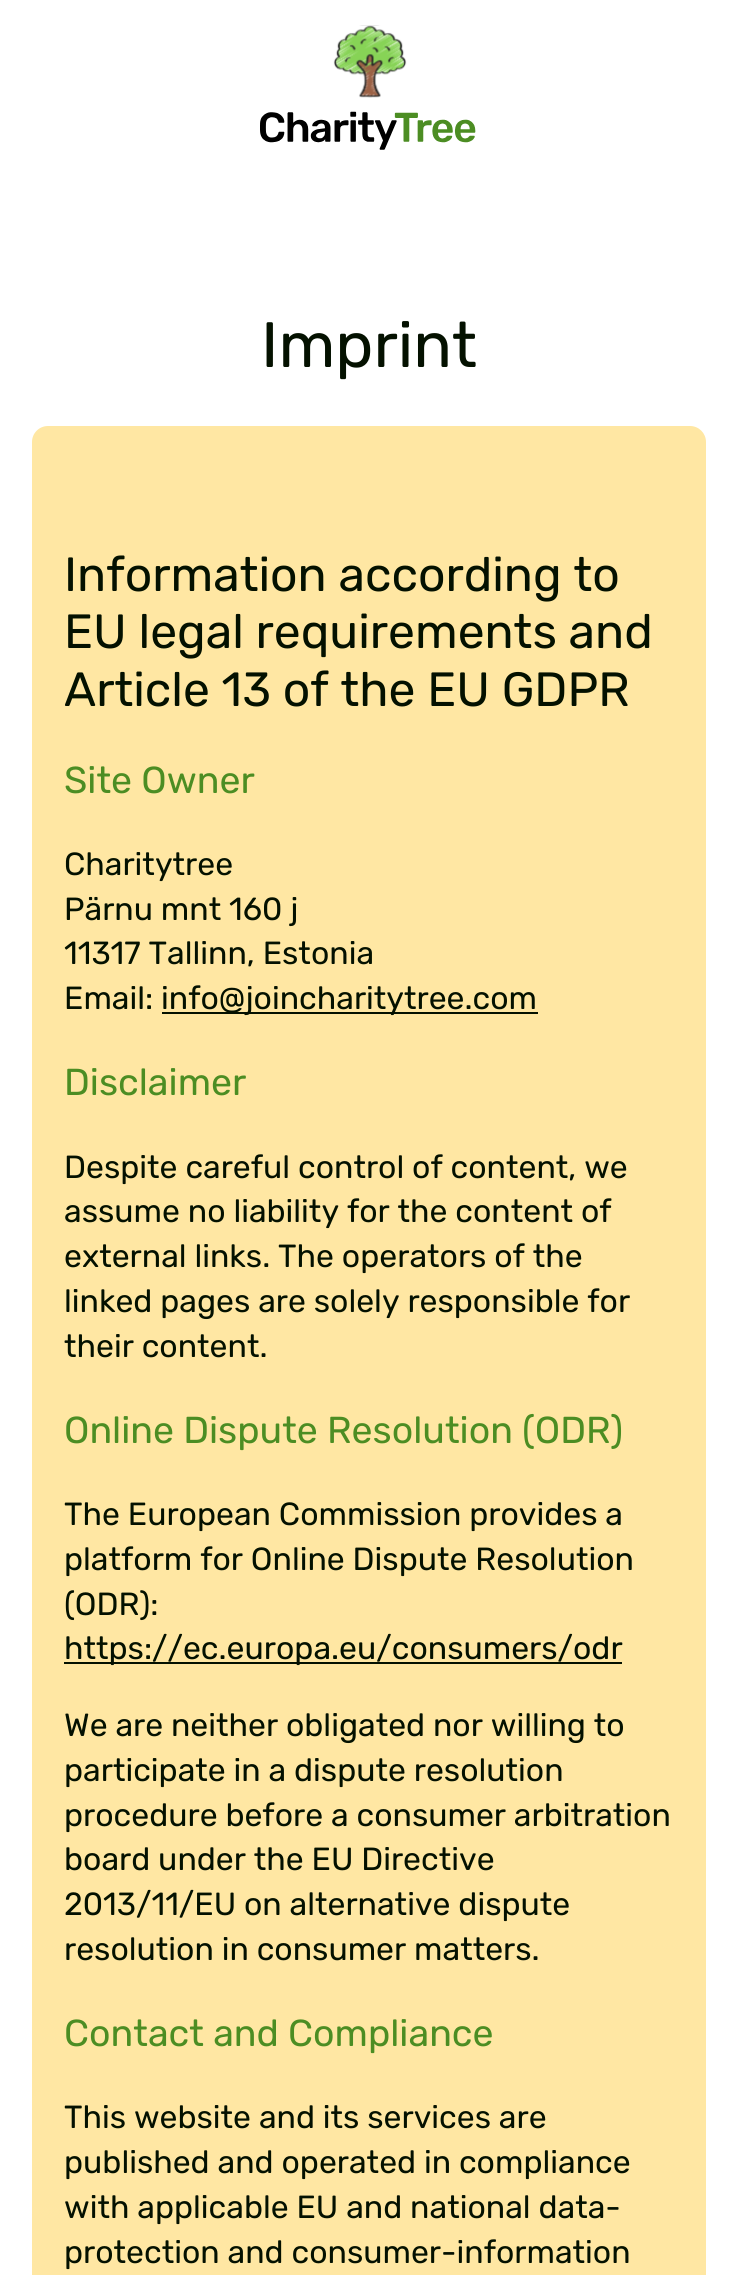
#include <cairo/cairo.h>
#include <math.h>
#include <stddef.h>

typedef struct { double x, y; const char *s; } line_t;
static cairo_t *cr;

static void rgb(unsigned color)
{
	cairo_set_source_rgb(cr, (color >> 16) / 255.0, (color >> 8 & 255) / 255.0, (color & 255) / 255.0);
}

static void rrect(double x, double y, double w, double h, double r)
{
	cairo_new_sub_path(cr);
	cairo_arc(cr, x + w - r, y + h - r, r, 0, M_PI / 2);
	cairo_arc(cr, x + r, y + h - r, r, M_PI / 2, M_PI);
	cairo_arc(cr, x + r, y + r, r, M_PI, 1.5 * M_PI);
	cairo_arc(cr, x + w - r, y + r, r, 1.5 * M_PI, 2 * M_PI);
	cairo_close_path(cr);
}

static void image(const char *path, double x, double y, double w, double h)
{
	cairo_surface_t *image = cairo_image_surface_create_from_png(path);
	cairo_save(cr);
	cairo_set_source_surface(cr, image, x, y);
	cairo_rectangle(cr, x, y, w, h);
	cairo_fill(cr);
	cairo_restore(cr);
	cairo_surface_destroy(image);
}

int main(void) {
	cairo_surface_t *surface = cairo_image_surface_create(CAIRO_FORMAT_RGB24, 737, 2275);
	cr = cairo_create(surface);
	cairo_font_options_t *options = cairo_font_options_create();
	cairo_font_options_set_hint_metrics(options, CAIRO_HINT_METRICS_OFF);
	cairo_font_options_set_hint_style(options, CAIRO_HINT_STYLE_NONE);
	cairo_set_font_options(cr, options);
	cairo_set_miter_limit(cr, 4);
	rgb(0xffffff);
	cairo_paint(cr);
	image("img/1.png", 260, 25, 216, 125);
	rgb(0xffe7a3);
	rrect(32, 426, 674, 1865, 16);
	cairo_fill(cr);
	rgb(0x041100);
	cairo_rectangle(cr, 162, 1012, 376, 2);
	cairo_fill(cr);
	cairo_rectangle(cr, 64, 1662, 558, 2);
	cairo_fill(cr);
	cairo_select_font_face(cr, "Rubik Light", CAIRO_FONT_SLANT_NORMAL, CAIRO_FONT_WEIGHT_NORMAL);
	cairo_set_font_size(cr, 64);
	cairo_move_to(cr, 261, 367);
	cairo_show_text(cr, "Imprint");
	cairo_set_font_size(cr, 48);
	{
		static const line_t items[] = {
			{64, 591, "Information according to"},
			{64, 648, "EU legal requirements and"},
			{64, 706, "Article 13 of the EU GDPR"},
		};
		for (size_t i = 0; i < sizeof items / sizeof *items; i++) {
			cairo_move_to(cr, items[i].x, items[i].y);
			cairo_show_text(cr, items[i].s);
		}
	}
	cairo_set_font_size(cr, 37.5);
	rgb(0x4c8d23);
	cairo_move_to(cr, 64, 793);
	cairo_show_text(cr, "Site Owner");
	cairo_set_font_size(cr, 32);
	rgb(0x041100);
	{
		static const line_t items[] = {
			{64, 875, "Charitytree"},
			{64, 920, "Pärnu mnt 160 j"},
			{64, 964, "11317 Tallinn, Estonia"},
			{64, 1009, "Email:"},
			{161, 1009, "info@joincharitytree.com"},
		};
		for (size_t i = 0; i < sizeof items / sizeof *items; i++) {
			cairo_move_to(cr, items[i].x, items[i].y);
			cairo_show_text(cr, items[i].s);
		}
	}
	cairo_set_font_size(cr, 37.5);
	rgb(0x4c8d23);
	cairo_move_to(cr, 64, 1095);
	cairo_show_text(cr, "Disclaimer");
	cairo_set_font_size(cr, 32);
	rgb(0x041100);
	{
		static const line_t items[] = {
			{64, 1178, "Despite careful control of content, we"},
			{64, 1222, "assume no liability for the content of"},
			{64, 1267, "external links. The operators of the"},
			{64, 1312, "linked pages are solely responsible for"},
			{64, 1357, "their content."},
		};
		for (size_t i = 0; i < sizeof items / sizeof *items; i++) {
			cairo_move_to(cr, items[i].x, items[i].y);
			cairo_show_text(cr, items[i].s);
		}
	}
	cairo_set_font_size(cr, 37.5);
	rgb(0x4c8d23);
	cairo_move_to(cr, 64, 1443);
	cairo_show_text(cr, "Online Dispute Resolution (ODR)");
	cairo_set_font_size(cr, 32);
	rgb(0x041100);
	{
		static const line_t items[] = {
			{64, 1525, "The European Commission provides a"},
			{64, 1570, "platform for Online Dispute Resolution"},
			{64, 1615, "(ODR):"},
			{64, 1659, "https://ec.europa.eu/consumers/odr"},
			{64, 1736, "We are neither obligated nor willing to"},
			{64, 1781, "participate in a dispute resolution"},
			{64, 1826, "procedure before a consumer arbitration"},
			{64, 1870, "board under the EU Directive"},
			{64, 1915, "2013/11/EU on alternative dispute"},
			{64, 1960, "resolution in consumer matters."},
		};
		for (size_t i = 0; i < sizeof items / sizeof *items; i++) {
			cairo_move_to(cr, items[i].x, items[i].y);
			cairo_show_text(cr, items[i].s);
		}
	}
	cairo_set_font_size(cr, 37.5);
	rgb(0x4c8d23);
	cairo_move_to(cr, 64, 2046);
	cairo_show_text(cr, "Contact and Compliance");
	cairo_set_font_size(cr, 32);
	rgb(0x041100);
	{
		static const line_t items[] = {
			{64, 2128, "This website and its services are"},
			{64, 2173, "published and operated in compliance"},
			{64, 2218, "with applicable EU and national data-"},
			{64, 2263, "protection and consumer-information"},
		};
		for (size_t i = 0; i < sizeof items / sizeof *items; i++) {
			cairo_move_to(cr, items[i].x, items[i].y);
			cairo_show_text(cr, items[i].s);
		}
	}
	cairo_surface_write_to_png(surface, "page.png");
	cairo_font_options_destroy(options);
	cairo_destroy(cr);
	cairo_surface_destroy(surface);
	return 0;
}
